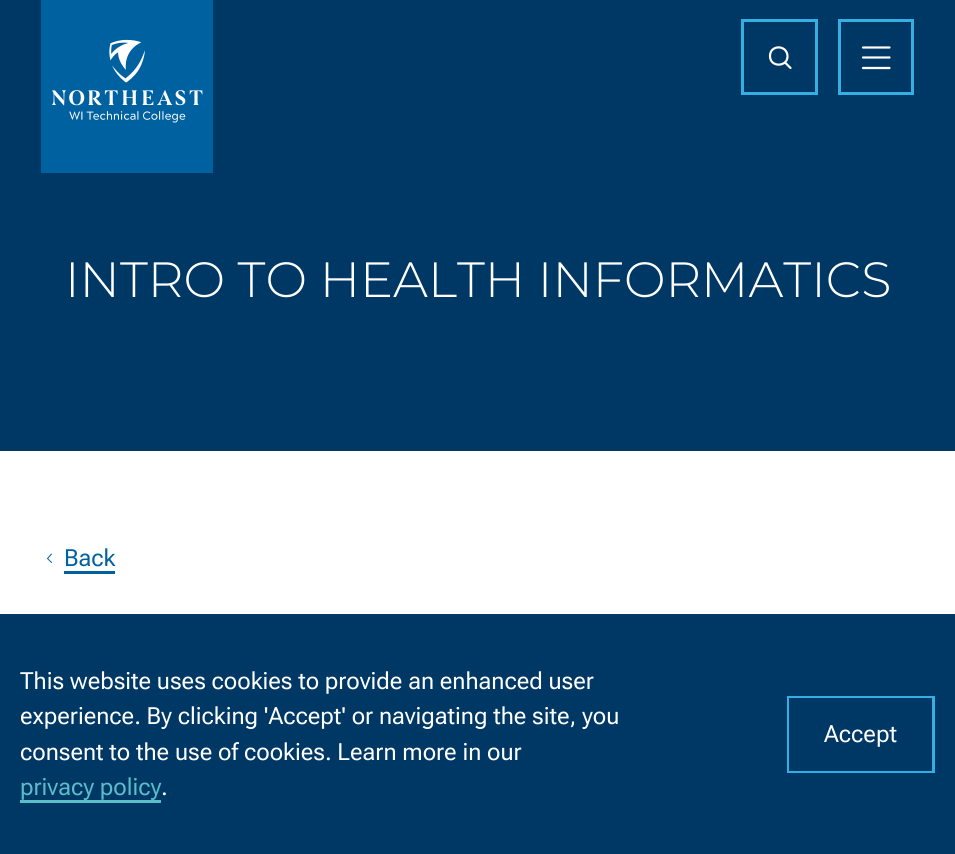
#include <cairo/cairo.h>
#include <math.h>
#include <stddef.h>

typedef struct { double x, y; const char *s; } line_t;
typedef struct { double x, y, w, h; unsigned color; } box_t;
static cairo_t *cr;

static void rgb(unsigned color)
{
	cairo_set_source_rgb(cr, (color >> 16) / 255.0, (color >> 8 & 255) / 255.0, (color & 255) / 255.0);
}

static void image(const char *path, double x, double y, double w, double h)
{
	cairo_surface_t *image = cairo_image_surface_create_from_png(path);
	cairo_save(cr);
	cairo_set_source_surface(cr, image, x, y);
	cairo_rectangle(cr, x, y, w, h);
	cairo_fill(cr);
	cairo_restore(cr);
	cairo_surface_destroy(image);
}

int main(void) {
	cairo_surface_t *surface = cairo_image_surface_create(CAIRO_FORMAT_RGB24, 955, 854);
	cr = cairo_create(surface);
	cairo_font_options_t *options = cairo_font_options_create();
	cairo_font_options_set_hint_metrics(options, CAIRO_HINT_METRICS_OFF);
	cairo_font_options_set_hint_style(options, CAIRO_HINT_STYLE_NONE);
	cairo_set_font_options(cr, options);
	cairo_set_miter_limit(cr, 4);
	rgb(0xffffff);
	cairo_paint(cr);
	rgb(0x003865);
	cairo_rectangle(cr, 0, 0, 955, 451);
	cairo_fill(cr);
	cairo_rectangle(cr, 742.5, 20.5, 74, 73);
	rgb(0x35aee3);
	cairo_set_line_width(cr, 3);
	cairo_stroke(cr);
	cairo_new_path(cr);
	cairo_move_to(cr, 785, 62.5);
	cairo_line_to(cr, 790.5, 68);
	cairo_move_to(cr, 770, 56);
	cairo_curve_to(cr, 770, 68, 788, 67, 787.5, 56);
	cairo_curve_to(cr, 787, 44.5, 770, 44.5, 770, 56);
	cairo_close_path(cr);
	rgb(0xffffff);
	cairo_set_line_width(cr, 2.2);
	cairo_set_line_cap(cr, CAIRO_LINE_CAP_ROUND);
	cairo_set_line_join(cr, CAIRO_LINE_JOIN_ROUND);
	cairo_stroke(cr);
	cairo_rectangle(cr, 839.5, 20.5, 73, 73);
	rgb(0x35aee3);
	cairo_set_line_width(cr, 3);
	cairo_set_line_cap(cr, CAIRO_LINE_CAP_BUTT);
	cairo_set_line_join(cr, CAIRO_LINE_JOIN_MITER);
	cairo_stroke(cr);
	cairo_new_path(cr);
	cairo_move_to(cr, 863, 47.5);
	cairo_line_to(cr, 889.5, 47.5);
	cairo_move_to(cr, 863, 57.5);
	cairo_line_to(cr, 889.5, 57.5);
	cairo_move_to(cr, 863, 68);
	cairo_line_to(cr, 889.5, 68);
	rgb(0xffffff);
	cairo_set_line_width(cr, 2.2);
	cairo_set_line_cap(cr, CAIRO_LINE_CAP_ROUND);
	cairo_set_line_join(cr, CAIRO_LINE_JOIN_ROUND);
	cairo_stroke(cr);
	rgb(0x0061a0);
	cairo_rectangle(cr, 41, 0, 172, 173);
	cairo_fill(cr);
	image("img/1.png", 52, 39, 151, 84);
	cairo_new_path(cr);
	cairo_move_to(cr, 51.5, 554);
	cairo_line_to(cr, 47.5, 558.5);
	cairo_line_to(cr, 51.5, 562.5);
	cairo_set_line_width(cr, 1);
	cairo_stroke(cr);
	{
		static const box_t items[] = {
			{64, 571, 51, 3, 0x0061a0},
			{0, 614, 955, 240, 0x003865},
			{20, 800, 141, 3, 0x59bec9},
		};
		for (size_t i = 0; i < sizeof items / sizeof *items; i++) {
			rgb(items[i].color);
			cairo_rectangle(cr, items[i].x, items[i].y, items[i].w, items[i].h);
			cairo_fill(cr);
		}
	}
	cairo_rectangle(cr, 787.5, 696.5, 146, 76);
	rgb(0x35aee3);
	cairo_set_line_width(cr, 3);
	cairo_set_line_cap(cr, CAIRO_LINE_CAP_BUTT);
	cairo_set_line_join(cr, CAIRO_LINE_JOIN_MITER);
	cairo_stroke(cr);
	cairo_rectangle(cr, 785.5, 694.5, 151, 80);
	rgb(0x003865);
	cairo_stroke(cr);
	cairo_select_font_face(cr, "Montserrat Light", CAIRO_FONT_SLANT_NORMAL, CAIRO_FONT_WEIGHT_NORMAL);
	cairo_set_font_size(cr, 49.5);
	rgb(0xffffff);
	cairo_move_to(cr, 65, 297);
	cairo_show_text(cr, "INTRO TO HEALTH INFORMATICS");
	cairo_select_font_face(cr, "Roboto Flex", CAIRO_FONT_SLANT_NORMAL, CAIRO_FONT_WEIGHT_NORMAL);
	cairo_set_font_size(cr, 23.6);
	rgb(0x0061a0);
	cairo_move_to(cr, 64, 566);
	cairo_show_text(cr, "Back");
	rgb(0xffffff);
	{
		static const line_t items[] = {
			{20, 689, "This website uses cookies to provide an enhanced user"},
			{20, 724, "experience. By clicking 'Accept' or navigating the site, you"},
			{20, 760, "consent to the use of cookies. Learn more in our"},
		};
		for (size_t i = 0; i < sizeof items / sizeof *items; i++) {
			cairo_move_to(cr, items[i].x, items[i].y);
			cairo_show_text(cr, items[i].s);
		}
	}
	rgb(0x59bec9);
	cairo_move_to(cr, 20, 795);
	cairo_show_text(cr, "privacy policy");
	rgb(0xffffff);
	cairo_move_to(cr, 161, 795);
	cairo_show_text(cr, ".");
	cairo_move_to(cr, 824, 742);
	cairo_show_text(cr, "Accept");
	cairo_surface_write_to_png(surface, "page.png");
	cairo_font_options_destroy(options);
	cairo_destroy(cr);
	cairo_surface_destroy(surface);
	return 0;
}
